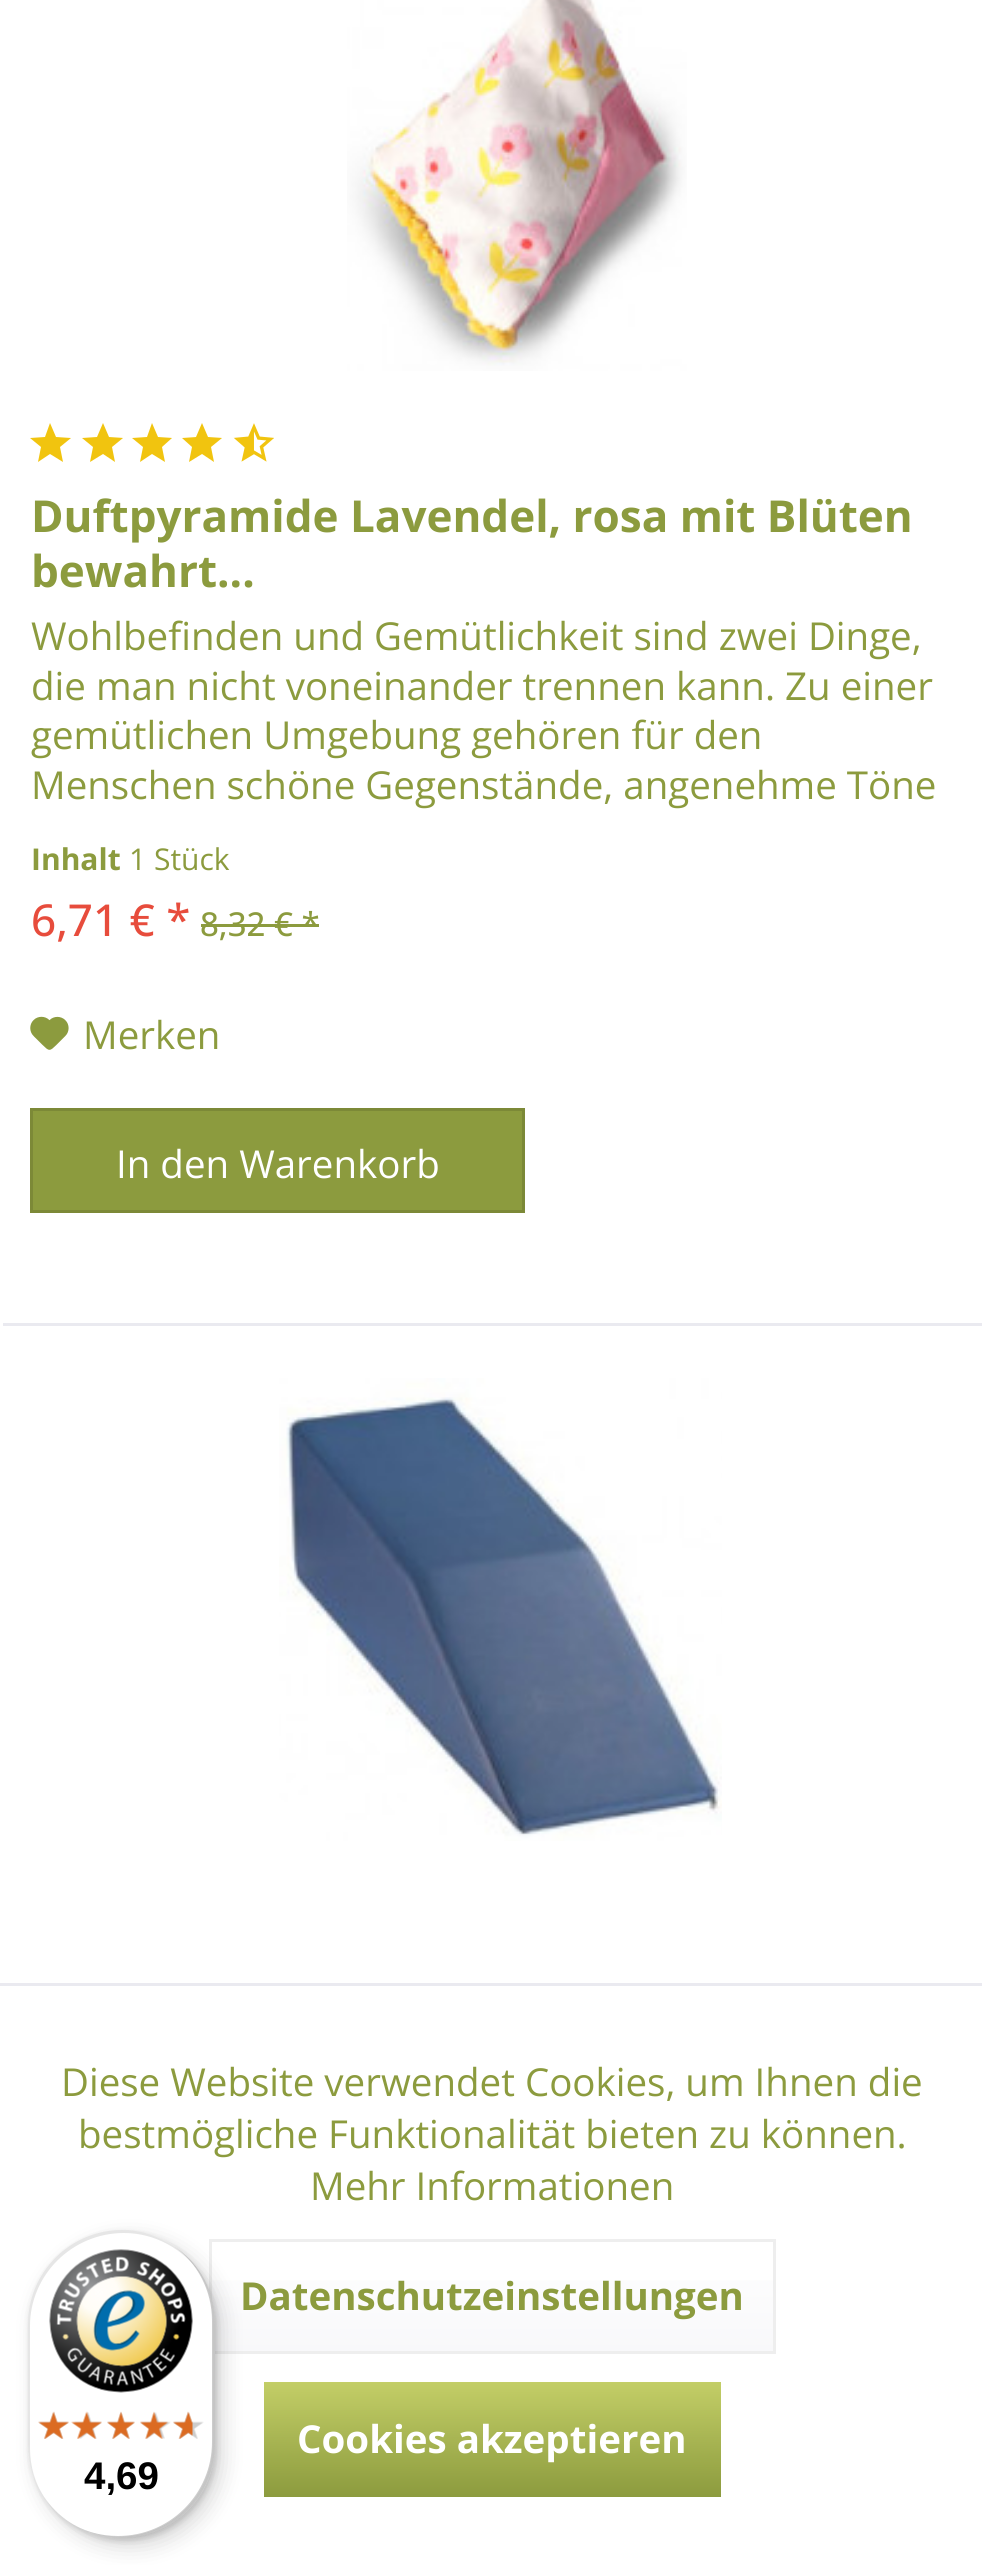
#include <cairo/cairo.h>
#include <math.h>
#include <stddef.h>

typedef struct { double x, y; const char *s; } line_t;
static cairo_t *cr;

static void rgb(unsigned color)
{
	cairo_set_source_rgb(cr, (color >> 16) / 255.0, (color >> 8 & 255) / 255.0, (color & 255) / 255.0);
}

static void rrect(double x, double y, double w, double h, double r)
{
	cairo_new_sub_path(cr);
	cairo_arc(cr, x + w - r, y + h - r, r, 0, M_PI / 2);
	cairo_arc(cr, x + r, y + h - r, r, M_PI / 2, M_PI);
	cairo_arc(cr, x + r, y + r, r, M_PI, 1.5 * M_PI);
	cairo_arc(cr, x + w - r, y + r, r, 1.5 * M_PI, 2 * M_PI);
	cairo_close_path(cr);
}

static void soft_shadow(double x, double y, double w, double h, double r, double blur, double alpha)
{
	cairo_push_group_with_content(cr, CAIRO_CONTENT_ALPHA);
	cairo_set_operator(cr, CAIRO_OPERATOR_SOURCE);
	for (int i = 15; i >= -15 && fmin(w, h) + blur * i / 3 > 0; i -= 2) {
		double e = blur * i / 6;
		cairo_set_source_rgba(cr, 0, 0, 0, alpha * erfc((i - 1) / 8.5) / 2);
		rrect(x - e, y - e, w + 2 * e, h + 2 * e, fmax(0, fmin(r + e + blur * .6, fmin(w, h) / 2 + e)));
		cairo_fill(cr);
	}
	cairo_pattern_t *soft = cairo_pop_group(cr);
	cairo_mask(cr, soft);
	cairo_pattern_destroy(soft);
}

static void image(const char *path, double x, double y, double w, double h)
{
	cairo_surface_t *image = cairo_image_surface_create_from_png(path);
	cairo_save(cr);
	cairo_set_source_surface(cr, image, x, y);
	cairo_rectangle(cr, x, y, w, h);
	cairo_fill(cr);
	cairo_restore(cr);
	cairo_surface_destroy(image);
}

int main(void) {
	cairo_surface_t *surface = cairo_image_surface_create(CAIRO_FORMAT_RGB24, 982, 2565);
	cr = cairo_create(surface);
	cairo_font_options_t *options = cairo_font_options_create();
	cairo_font_options_set_hint_metrics(options, CAIRO_HINT_METRICS_OFF);
	cairo_font_options_set_hint_style(options, CAIRO_HINT_STYLE_NONE);
	cairo_set_font_options(cr, options);
	cairo_set_miter_limit(cr, 4);
	cairo_pattern_t *gradient;
	rgb(0xffffff);
	cairo_paint(cr);
	rgb(0xeaeaf0);
	cairo_rectangle(cr, 0, 1323, 982, 3);
	cairo_fill(cr);
	rgb(0xffffff);
	cairo_rectangle(cr, 0, 1323, 3, 3);
	cairo_fill(cr);
	image("img/1.png", 347, 0, 340, 371);
	rgb(0xf1c40f);
	cairo_new_path(cr);
	cairo_move_to(cr, 50, 423);
	cairo_line_to(cr, 45, 437);
	cairo_line_to(cr, 30, 438);
	cairo_line_to(cr, 41, 447);
	cairo_line_to(cr, 38, 462);
	cairo_line_to(cr, 50, 454);
	cairo_line_to(cr, 63, 462);
	cairo_line_to(cr, 60, 447);
	cairo_line_to(cr, 71, 438);
	cairo_line_to(cr, 56, 437);
	cairo_close_path(cr);
	cairo_fill(cr);
	cairo_new_path(cr);
	cairo_move_to(cr, 103, 423);
	cairo_line_to(cr, 97, 437);
	cairo_line_to(cr, 82, 438);
	cairo_line_to(cr, 93, 447);
	cairo_line_to(cr, 90, 462);
	cairo_line_to(cr, 103, 454);
	cairo_line_to(cr, 115, 462);
	cairo_line_to(cr, 112, 447);
	cairo_line_to(cr, 123, 438);
	cairo_line_to(cr, 109, 437);
	cairo_close_path(cr);
	cairo_fill(cr);
	cairo_new_path(cr);
	cairo_move_to(cr, 152, 423);
	cairo_line_to(cr, 147, 437);
	cairo_line_to(cr, 132, 438);
	cairo_line_to(cr, 143, 447);
	cairo_line_to(cr, 140, 462);
	cairo_line_to(cr, 152, 454);
	cairo_line_to(cr, 165, 462);
	cairo_line_to(cr, 162, 447);
	cairo_line_to(cr, 172, 438);
	cairo_line_to(cr, 158, 437);
	cairo_close_path(cr);
	cairo_fill(cr);
	cairo_new_path(cr);
	cairo_move_to(cr, 202, 423);
	cairo_line_to(cr, 196, 437);
	cairo_line_to(cr, 182, 438);
	cairo_line_to(cr, 192, 447);
	cairo_line_to(cr, 189, 462);
	cairo_line_to(cr, 202, 454);
	cairo_line_to(cr, 214, 462);
	cairo_line_to(cr, 211, 447);
	cairo_line_to(cr, 222, 438);
	cairo_line_to(cr, 208, 437);
	cairo_close_path(cr);
	cairo_fill(cr);
	image("img/2.png", 233, 423, 41, 39);
	rgb(0x8c9b3e);
	cairo_rectangle(cr, 201, 924, 118, 3);
	cairo_fill(cr);
	image("img/3.png", 30, 1016, 39, 34);
	cairo_rectangle(cr, 31.5, 1109.5, 492, 102);
	cairo_fill_preserve(cr);
	rgb(0x7c8937);
	cairo_set_line_width(cr, 3);
	cairo_stroke(cr);
	image("img/4.png", 279, 1378, 443, 463);
	rgb(0xeaeaf0);
	cairo_rectangle(cr, 0, 1983, 982, 3);
	cairo_fill(cr);
	gradient = cairo_pattern_create_linear(492, 2241, 492, 2351);
	cairo_pattern_add_color_stop_rgba(gradient, 0, 1, 1, 1, 1);
	cairo_pattern_add_color_stop_rgba(gradient, 1, 0.973, 0.973, 0.98, 1);
	cairo_set_source(cr, gradient);
	cairo_pattern_destroy(gradient);
	cairo_rectangle(cr, 212, 2280, 561, 71);
	cairo_fill(cr);
	cairo_rectangle(cr, 210.5, 2240.5, 564, 112);
	rgb(0xeeeeee);
	cairo_stroke(cr);
	gradient = cairo_pattern_create_linear(492, 2382, 492, 2497);
	cairo_pattern_add_color_stop_rgba(gradient, 0, 0.765, 0.808, 0.404, 1);
	cairo_pattern_add_color_stop_rgba(gradient, 1, 0.549, 0.608, 0.243, 1);
	cairo_set_source(cr, gradient);
	cairo_pattern_destroy(gradient);
	cairo_rectangle(cr, 264, 2382, 457, 115);
	cairo_fill(cr);
	rgb(0x000000);
	soft_shadow(36, 2239, 187, 308, 93.5, 11, 0.15);
	soft_shadow(30, 2233, 187, 308, 93.5, 3, 0.15);
	rgb(0xffffff);
	rrect(28, 2230, 187, 308, 93.5);
	cairo_fill(cr);
	cairo_set_source_rgba(cr, 0, 0, 0, 0.1);
	cairo_new_path(cr);
	cairo_move_to(cr, 124, 2233);
	cairo_curve_to(cr, 155, 2233, 183, 2249, 200, 2273);
	cairo_curve_to(cr, 183, 2247, 154, 2230, 122, 2230);
	cairo_curve_to(cr, 70, 2230, 28, 2272, 28, 2324);
	cairo_line_to(cr, 28, 2444);
	cairo_curve_to(cr, 28, 2464, 34, 2483, 45, 2498);
	cairo_curve_to(cr, 35, 2484, 30, 2466, 30, 2448);
	cairo_line_to(cr, 30, 2326);
	cairo_curve_to(cr, 30, 2275, 72, 2233, 124, 2233);
	cairo_close_path(cr);
	cairo_fill(cr);
	cairo_set_source_rgba(cr, 0, 0, 0, 0.2);
	cairo_new_path(cr);
	cairo_move_to(cr, 68, 2521);
	cairo_curve_to(cr, 83, 2532, 102, 2538, 122, 2538);
	cairo_curve_to(cr, 173, 2538, 215, 2496, 215, 2444);
	cairo_line_to(cr, 215, 2324);
	cairo_curve_to(cr, 215, 2292, 199, 2263, 175, 2247);
	cairo_curve_to(cr, 197, 2263, 212, 2290, 212, 2321);
	cairo_line_to(cr, 212, 2442);
	cairo_curve_to(cr, 212, 2494, 170, 2536, 118, 2536);
	cairo_curve_to(cr, 100, 2536, 82, 2531, 68, 2521);
	cairo_close_path(cr);
	cairo_fill(cr);
	cairo_set_source_rgba(cr, 0.196, 0.196, 0.196, 0.2);
	cairo_new_path(cr);
	cairo_move_to(cr, 80, 2528);
	cairo_curve_to(cr, 92, 2534, 106, 2538, 122, 2538);
	cairo_curve_to(cr, 173, 2538, 215, 2496, 215, 2444);
	cairo_line_to(cr, 215, 2324);
	cairo_curve_to(cr, 215, 2287, 195, 2256, 165, 2241);
	cairo_curve_to(cr, 194, 2256, 213, 2287, 213, 2322);
	cairo_line_to(cr, 213, 2443);
	cairo_curve_to(cr, 213, 2495, 171, 2537, 119, 2537);
	cairo_curve_to(cr, 105, 2537, 92, 2534, 80, 2528);
	cairo_close_path(cr);
	cairo_fill(cr);
	cairo_set_source_rgba(cr, 1, 1, 1, 0.3);
	cairo_new_path(cr);
	cairo_move_to(cr, 73, 2525);
	cairo_curve_to(cr, 87, 2533, 104, 2538, 122, 2538);
	cairo_curve_to(cr, 173, 2538, 215, 2496, 215, 2444);
	cairo_line_to(cr, 215, 2324);
	cairo_curve_to(cr, 215, 2287, 194, 2255, 164, 2240);
	cairo_curve_to(cr, 193, 2256, 213, 2287, 213, 2322);
	cairo_line_to(cr, 213, 2443);
	cairo_curve_to(cr, 213, 2495, 171, 2537, 120, 2537);
	cairo_curve_to(cr, 103, 2537, 87, 2533, 73, 2525);
	cairo_close_path(cr);
	cairo_fill(cr);
	image("img/5.png", 49, 2249, 144, 144);
	image("img/11.png", 38, 2412, 31, 27);
	image("img/6.png", 38, 2411, 31, 28);
	image("img/12.png", 74, 2412, 28, 27);
	image("img/7.png", 71, 2411, 31, 28);
	image("img/13.png", 107, 2412, 28, 27);
	image("img/8.png", 107, 2411, 28, 28);
	image("img/14.png", 140, 2412, 31, 27);
	image("img/9.png", 140, 2411, 28, 28);
	image("img/15.png", 173, 2412, 31, 27);
	image("img/10.png", 173, 2411, 20, 28);
	cairo_select_font_face(cr, "Open Sans", CAIRO_FONT_SLANT_NORMAL, CAIRO_FONT_WEIGHT_BOLD);
	cairo_set_font_size(cr, 44);
	rgb(0x8c9b3e);
	cairo_move_to(cr, 31, 532);
	cairo_show_text(cr, "Duftpyramide Lavendel, rosa mit Blüten");
	cairo_move_to(cr, 31, 587);
	cairo_show_text(cr, "bewahrt...");
	cairo_select_font_face(cr, "Open Sans", CAIRO_FONT_SLANT_NORMAL, CAIRO_FONT_WEIGHT_NORMAL);
	cairo_set_font_size(cr, 38.5);
	{
		static const line_t items[] = {
			{31, 650, "Wohlbefinden und Gemütlichkeit sind zwei Dinge,"},
			{31, 700, "die man nicht voneinander trennen kann. Zu einer"},
			{31, 749, "gemütlichen Umgebung gehören für den"},
			{31, 799, "Menschen schöne Gegenstände, angenehme Töne"},
		};
		for (size_t i = 0; i < sizeof items / sizeof *items; i++) {
			cairo_move_to(cr, items[i].x, items[i].y);
			cairo_show_text(cr, items[i].s);
		}
	}
	cairo_select_font_face(cr, "Open Sans", CAIRO_FONT_SLANT_NORMAL, CAIRO_FONT_WEIGHT_BOLD);
	cairo_set_font_size(cr, 30);
	cairo_move_to(cr, 31, 870);
	cairo_show_text(cr, "Inhalt");
	cairo_select_font_face(cr, "Open Sans", CAIRO_FONT_SLANT_NORMAL, CAIRO_FONT_WEIGHT_NORMAL);
	cairo_move_to(cr, 129, 870);
	cairo_show_text(cr, "1 Stück");
	cairo_select_font_face(cr, "Open Sans Medium", CAIRO_FONT_SLANT_NORMAL, CAIRO_FONT_WEIGHT_NORMAL);
	cairo_set_font_size(cr, 44);
	rgb(0xe74c3c);
	cairo_move_to(cr, 31, 936);
	cairo_show_text(cr, "6,71 € *");
	cairo_set_font_size(cr, 33);
	rgb(0x8c9b3e);
	cairo_move_to(cr, 200, 936);
	cairo_show_text(cr, "8,32 € *");
	cairo_select_font_face(cr, "Open Sans", CAIRO_FONT_SLANT_NORMAL, CAIRO_FONT_WEIGHT_NORMAL);
	cairo_set_font_size(cr, 38.5);
	cairo_move_to(cr, 83, 1049);
	cairo_show_text(cr, "Merken");
	rgb(0xffffff);
	cairo_move_to(cr, 116, 1178);
	cairo_show_text(cr, "In den Warenkorb");
	rgb(0x8c9b3e);
	{
		static const line_t items[] = {
			{61, 2096, "Diese Website verwendet Cookies, um Ihnen die"},
			{78, 2148, "bestmögliche Funktionalität bieten zu können."},
			{310, 2200, "Mehr Informationen"},
		};
		for (size_t i = 0; i < sizeof items / sizeof *items; i++) {
			cairo_move_to(cr, items[i].x, items[i].y);
			cairo_show_text(cr, items[i].s);
		}
	}
	cairo_select_font_face(cr, "Open Sans", CAIRO_FONT_SLANT_NORMAL, CAIRO_FONT_WEIGHT_BOLD);
	cairo_move_to(cr, 240, 2310);
	cairo_show_text(cr, "Datenschutzeinstellungen");
	rgb(0xffffff);
	cairo_move_to(cr, 297, 2453);
	cairo_show_text(cr, "Cookies akzeptieren");
	cairo_select_font_face(cr, "Liberation Sans", CAIRO_FONT_SLANT_NORMAL, CAIRO_FONT_WEIGHT_BOLD);
	rgb(0x000000);
	cairo_move_to(cr, 84, 2489);
	cairo_show_text(cr, "4,69");
	cairo_surface_write_to_png(surface, "page.png");
	cairo_font_options_destroy(options);
	cairo_destroy(cr);
	cairo_surface_destroy(surface);
	return 0;
}
